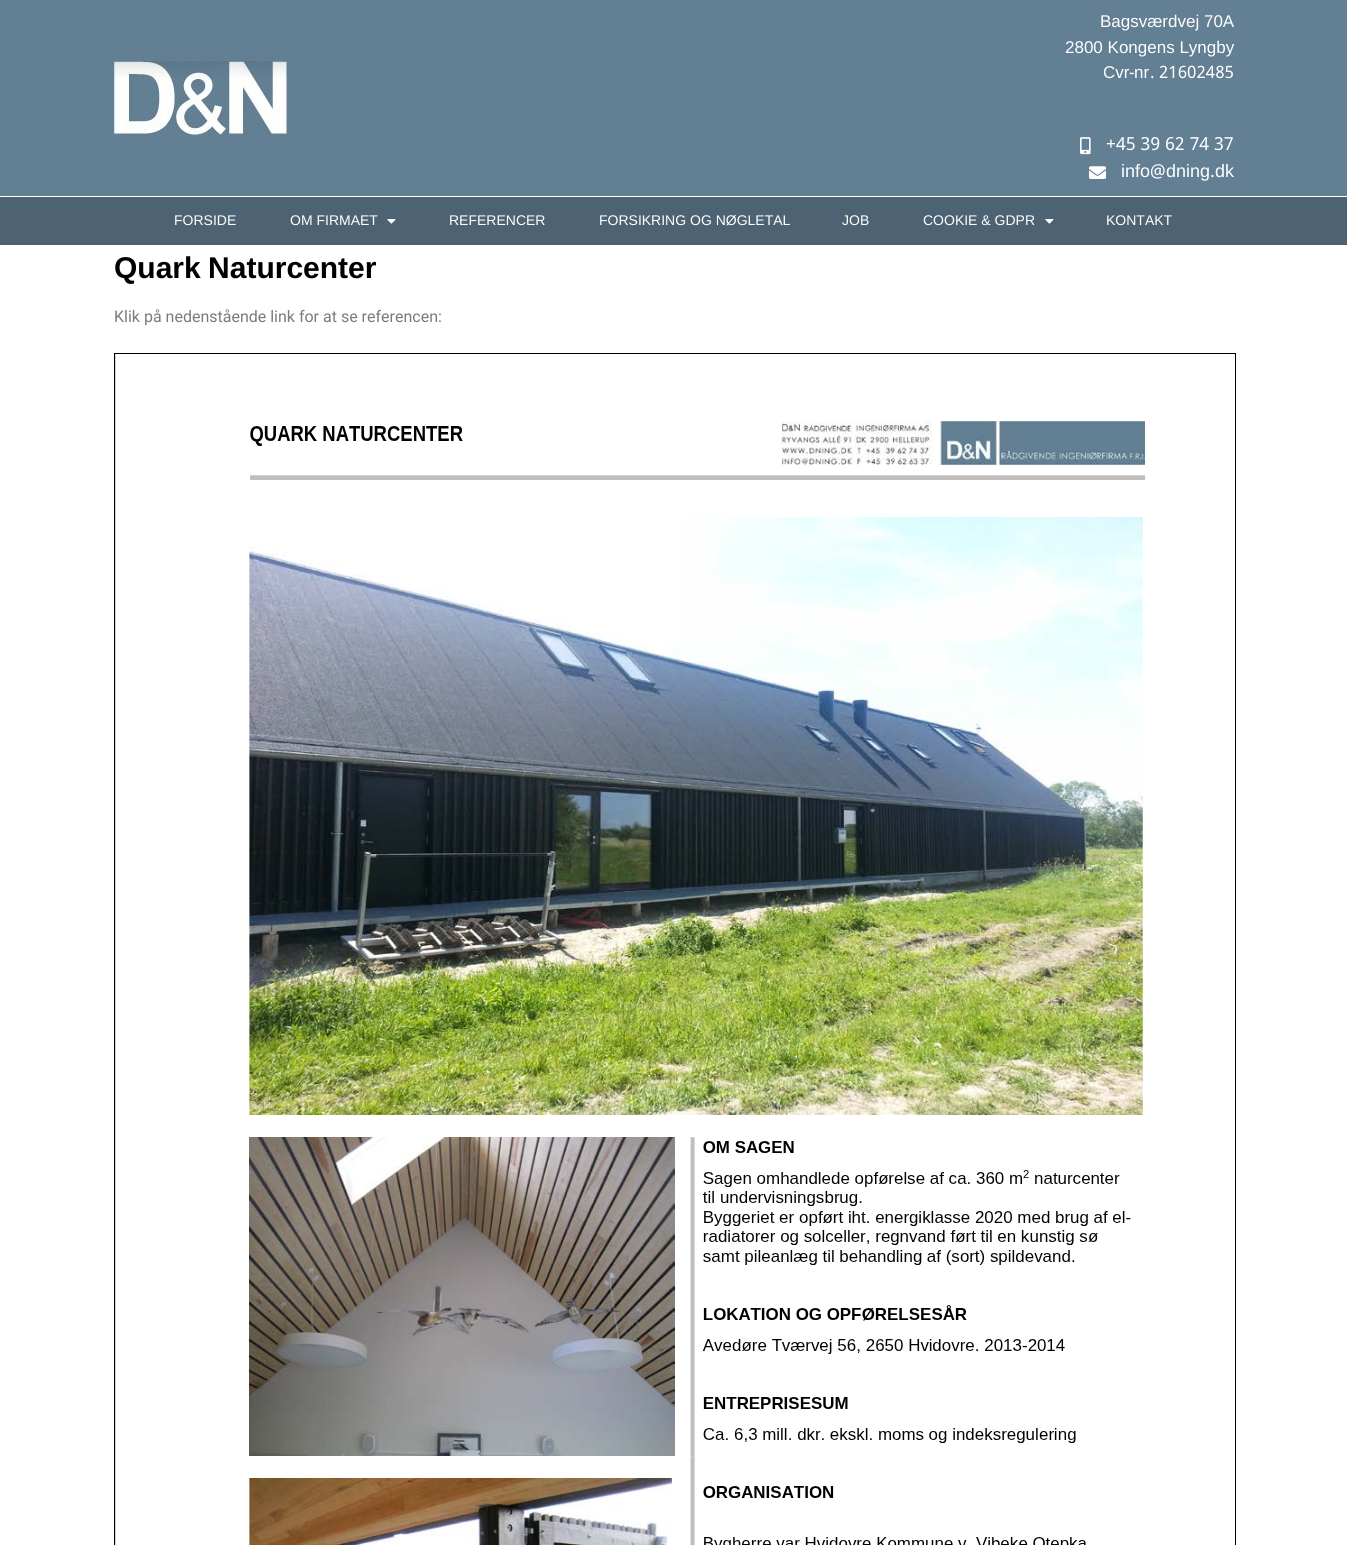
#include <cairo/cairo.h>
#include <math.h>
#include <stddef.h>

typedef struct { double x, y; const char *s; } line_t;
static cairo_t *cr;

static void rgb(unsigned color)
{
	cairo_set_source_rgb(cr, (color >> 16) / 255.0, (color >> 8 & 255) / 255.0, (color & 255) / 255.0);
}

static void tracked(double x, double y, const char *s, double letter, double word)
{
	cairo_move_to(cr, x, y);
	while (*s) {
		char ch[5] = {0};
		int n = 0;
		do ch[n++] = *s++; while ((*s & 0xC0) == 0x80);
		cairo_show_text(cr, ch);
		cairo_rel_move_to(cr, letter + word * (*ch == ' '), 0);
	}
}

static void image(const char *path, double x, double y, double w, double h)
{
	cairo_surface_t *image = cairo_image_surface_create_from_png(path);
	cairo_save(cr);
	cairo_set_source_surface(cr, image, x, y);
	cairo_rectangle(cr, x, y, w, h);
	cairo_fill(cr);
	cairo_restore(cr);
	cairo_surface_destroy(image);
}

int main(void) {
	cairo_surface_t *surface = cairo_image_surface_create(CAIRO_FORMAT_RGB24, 1347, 1545);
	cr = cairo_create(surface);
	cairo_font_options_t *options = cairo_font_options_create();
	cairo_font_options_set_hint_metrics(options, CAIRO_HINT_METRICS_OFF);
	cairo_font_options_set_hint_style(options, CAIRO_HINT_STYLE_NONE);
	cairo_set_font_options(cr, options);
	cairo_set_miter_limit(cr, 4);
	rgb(0xffffff);
	cairo_paint(cr);
	rgb(0x637f94);
	cairo_rectangle(cr, 0, 0, 1347, 196);
	cairo_fill(cr);
	image("img/1.png", 114, 61, 173, 74);
	image("img/2.png", 1080, 137, 11, 18);
	image("img/3.png", 1089, 166, 17, 13);
	rgb(0x4d6374);
	cairo_rectangle(cr, 0, 197, 1347, 48);
	cairo_fill(cr);
	image("img/4.png", 387, 219, 9, 5);
	image("img/4.png", 1045, 219, 9, 5);
	rgb(0xd3d3d3);
	cairo_rectangle(cr, 115, 354, 1, 1191);
	cairo_fill(cr);
	cairo_rectangle(cr, 114.5, 353.5, 1121, 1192);
	rgb(0x000000);
	cairo_set_line_width(cr, 1);
	cairo_stroke(cr);
	image("img/5.png", 249, 421, 897, 1124);
	cairo_select_font_face(cr, "Liberation Sans", CAIRO_FONT_SLANT_NORMAL, CAIRO_FONT_WEIGHT_NORMAL);
	cairo_set_font_size(cr, 17);
	rgb(0xffffff);
	{
		static const line_t items[] = {
			{1100, 27, "Bagsværdvej 70A"},
			{1065, 53, "2800 Kongens Lyngby"},
			{1103, 78, "Cvr"},
		};
		for (size_t i = 0; i < sizeof items / sizeof *items; i++) {
			cairo_move_to(cr, items[i].x, items[i].y);
			cairo_show_text(cr, items[i].s);
		}
	}
	cairo_select_font_face(cr, "Khmer", CAIRO_FONT_SLANT_NORMAL, CAIRO_FONT_WEIGHT_NORMAL);
	cairo_move_to(cr, 1129, 78);
	cairo_show_text(cr, "-");
	cairo_select_font_face(cr, "Liberation Sans", CAIRO_FONT_SLANT_NORMAL, CAIRO_FONT_WEIGHT_NORMAL);
	cairo_move_to(cr, 1134, 78);
	cairo_show_text(cr, "nr");
	cairo_select_font_face(cr, "Khmer", CAIRO_FONT_SLANT_NORMAL, CAIRO_FONT_WEIGHT_NORMAL);
	cairo_move_to(cr, 1150, 78);
	cairo_show_text(cr, ". 21602485");
	cairo_set_font_size(cr, 18);
	cairo_move_to(cr, 1106, 150);
	cairo_show_text(cr, "+45 39 62 74 37");
	cairo_select_font_face(cr, "Liberation Sans", CAIRO_FONT_SLANT_NORMAL, CAIRO_FONT_WEIGHT_NORMAL);
	cairo_move_to(cr, 1121, 177);
	cairo_show_text(cr, "info");
	cairo_select_font_face(cr, "Khmer", CAIRO_FONT_SLANT_NORMAL, CAIRO_FONT_WEIGHT_NORMAL);
	cairo_move_to(cr, 1150, 177);
	cairo_show_text(cr, "@");
	cairo_select_font_face(cr, "Liberation Sans", CAIRO_FONT_SLANT_NORMAL, CAIRO_FONT_WEIGHT_NORMAL);
	cairo_move_to(cr, 1166, 177);
	cairo_show_text(cr, "dning dk");
	cairo_select_font_face(cr, "Khmer", CAIRO_FONT_SLANT_NORMAL, CAIRO_FONT_WEIGHT_NORMAL);
	cairo_move_to(cr, 1210, 177);
	cairo_show_text(cr, ".");
	cairo_select_font_face(cr, "Liberation Sans", CAIRO_FONT_SLANT_NORMAL, CAIRO_FONT_WEIGHT_NORMAL);
	cairo_set_font_size(cr, 14);
	{
		static const line_t items[] = {
			{174, 225, "FORSIDE"},
			{290, 225, "OM FIRMAET"},
			{449, 225, "REFERENCER"},
			{599, 225, "FORSIKRING OG NØGLETAL"},
			{842, 225, "JOB"},
			{923, 225, "COOKIE & GDPR"},
			{1106, 225, "KONTAKT"},
		};
		for (size_t i = 0; i < sizeof items / sizeof *items; i++) {
			cairo_move_to(cr, items[i].x, items[i].y);
			cairo_show_text(cr, items[i].s);
		}
	}
	cairo_select_font_face(cr, "Liberation Sans", CAIRO_FONT_SLANT_NORMAL, CAIRO_FONT_WEIGHT_BOLD);
	cairo_set_font_size(cr, 30);
	rgb(0x000000);
	tracked(114, 278, "Quark Naturcenter", 0, -1);
	cairo_select_font_face(cr, "Roboto", CAIRO_FONT_SLANT_NORMAL, CAIRO_FONT_WEIGHT_NORMAL);
	cairo_set_font_size(cr, 16);
	rgb(0x7a7a7a);
	cairo_move_to(cr, 114, 322);
	cairo_show_text(cr, "Klik på nedenstående link for at se referencen:");
	cairo_surface_write_to_png(surface, "page.png");
	cairo_font_options_destroy(options);
	cairo_destroy(cr);
	cairo_surface_destroy(surface);
	return 0;
}
